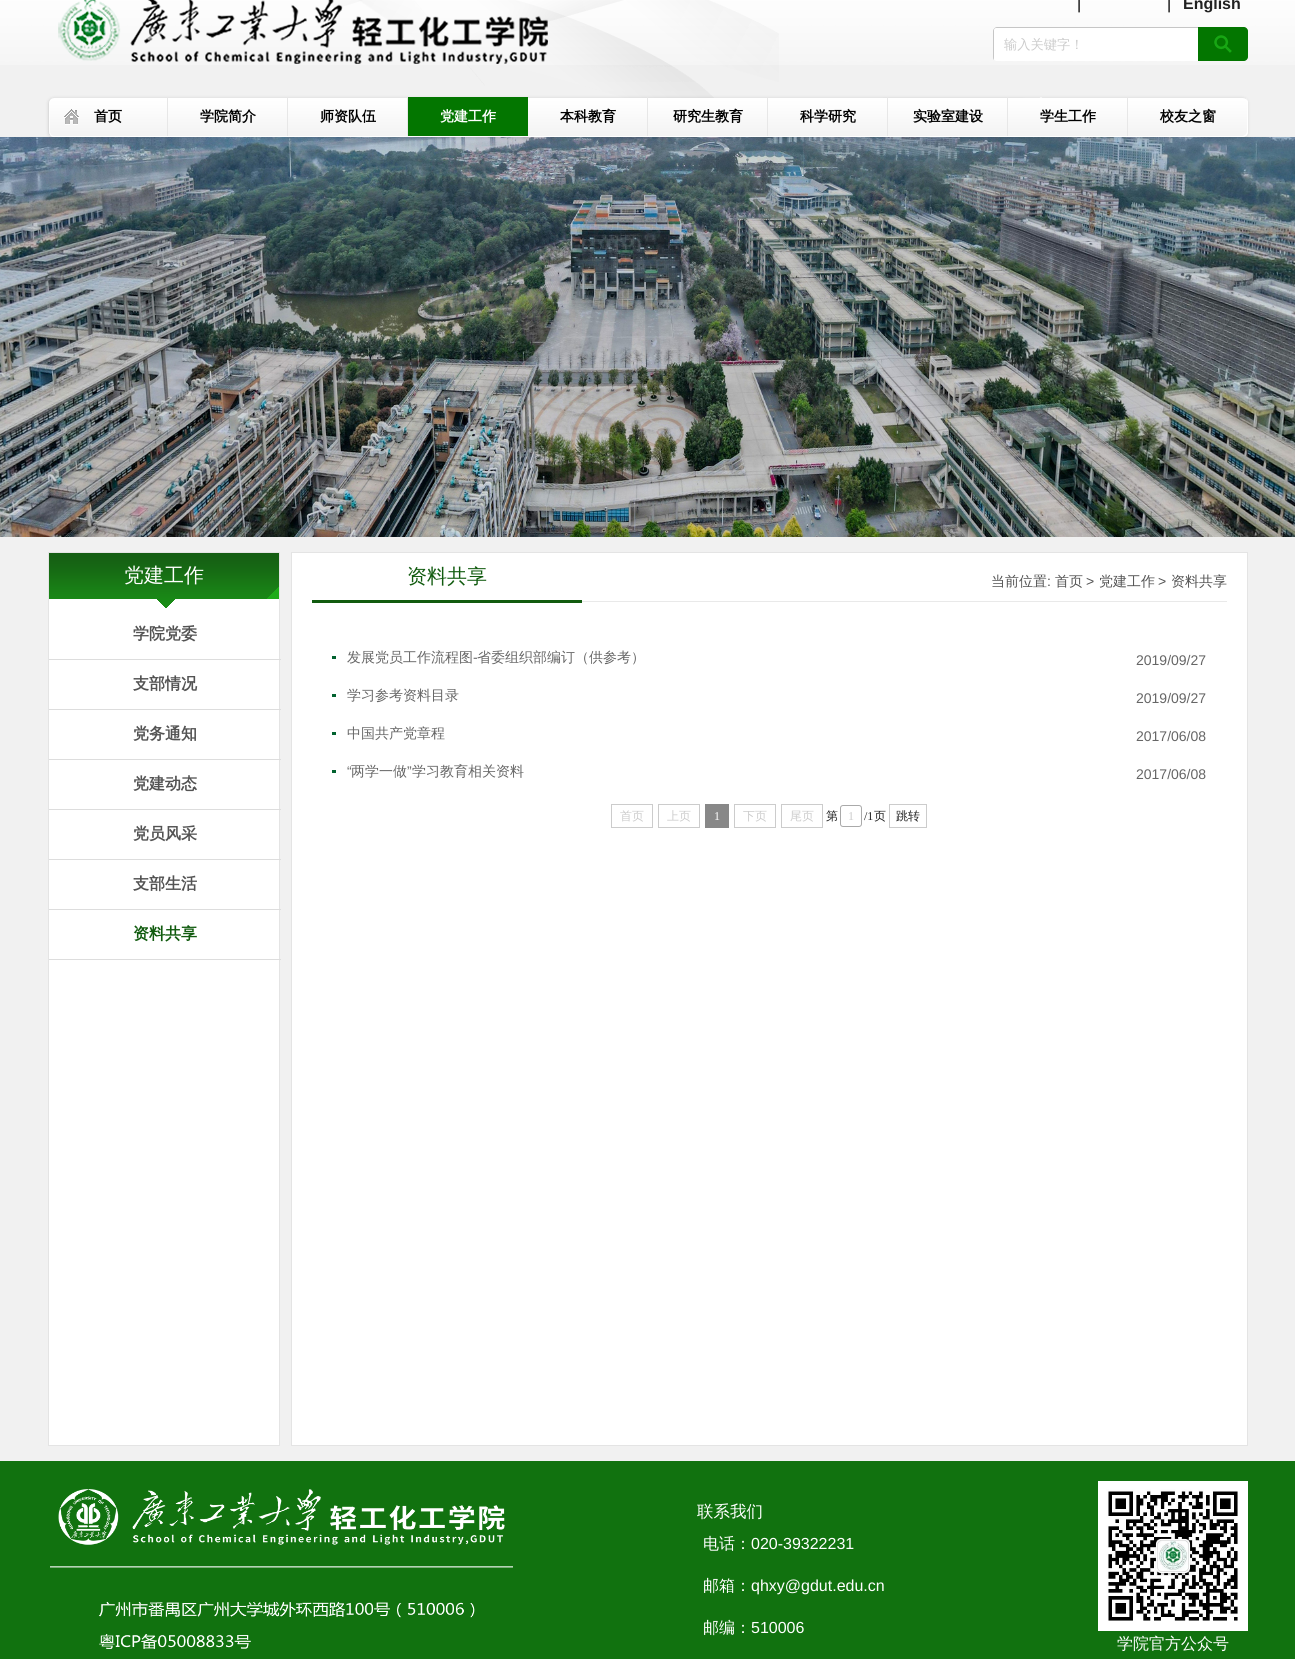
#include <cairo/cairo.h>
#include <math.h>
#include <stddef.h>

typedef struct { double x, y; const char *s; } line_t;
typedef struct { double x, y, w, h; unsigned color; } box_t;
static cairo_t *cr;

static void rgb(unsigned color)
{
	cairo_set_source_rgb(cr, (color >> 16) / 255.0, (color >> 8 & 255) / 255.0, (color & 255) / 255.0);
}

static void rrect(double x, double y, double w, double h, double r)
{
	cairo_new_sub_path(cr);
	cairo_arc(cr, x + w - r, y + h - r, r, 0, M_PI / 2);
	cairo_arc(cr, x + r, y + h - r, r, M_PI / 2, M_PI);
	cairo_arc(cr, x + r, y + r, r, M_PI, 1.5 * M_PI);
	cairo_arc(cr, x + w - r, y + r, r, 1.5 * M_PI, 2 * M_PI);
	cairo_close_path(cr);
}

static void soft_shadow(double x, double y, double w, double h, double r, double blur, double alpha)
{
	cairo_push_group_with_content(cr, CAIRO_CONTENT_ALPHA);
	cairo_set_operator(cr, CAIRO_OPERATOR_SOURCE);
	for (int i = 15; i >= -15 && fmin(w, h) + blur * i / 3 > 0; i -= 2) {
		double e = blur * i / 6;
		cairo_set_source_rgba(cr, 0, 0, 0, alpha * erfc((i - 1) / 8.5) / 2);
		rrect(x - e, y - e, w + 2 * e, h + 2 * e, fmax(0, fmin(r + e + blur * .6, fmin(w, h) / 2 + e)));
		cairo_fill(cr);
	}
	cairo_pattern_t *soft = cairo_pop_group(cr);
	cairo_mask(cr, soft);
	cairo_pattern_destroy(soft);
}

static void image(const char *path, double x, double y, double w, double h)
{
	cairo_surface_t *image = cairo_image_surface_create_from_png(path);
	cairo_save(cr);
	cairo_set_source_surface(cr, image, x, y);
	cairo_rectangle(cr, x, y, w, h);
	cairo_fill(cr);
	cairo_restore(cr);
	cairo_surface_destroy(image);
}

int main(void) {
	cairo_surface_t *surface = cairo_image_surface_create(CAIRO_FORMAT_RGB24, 1295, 1659);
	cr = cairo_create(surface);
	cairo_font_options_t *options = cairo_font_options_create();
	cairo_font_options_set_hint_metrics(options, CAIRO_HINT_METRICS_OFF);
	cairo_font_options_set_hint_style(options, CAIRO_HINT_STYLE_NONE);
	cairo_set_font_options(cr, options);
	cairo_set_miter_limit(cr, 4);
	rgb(0xf1f1f1);
	cairo_paint(cr);
	image("img/1.png", 0, 0, 1295, 65);
	image("img/2.png", 333, 0, 446, 98);
	image("img/3.png", 58, 0, 490, 64);
	rgb(0xffffff);
	rrect(993, 27, 255, 34, 4);
	cairo_fill(cr);
	rgb(0xc6c6c6);
	cairo_new_path(cr);
	cairo_move_to(cr, 996, 28);
	cairo_line_to(cr, 1198, 28);
	cairo_curve_to(cr, 1199, 28, 1200, 29, 1200, 30);
	cairo_line_to(cr, 1200, 61);
	cairo_line_to(cr, 1201, 61);
	cairo_line_to(cr, 1201, 60);
	cairo_line_to(cr, 1201, 30);
	cairo_curve_to(cr, 1201, 28, 1200, 27, 1198, 27);
	cairo_line_to(cr, 997, 27);
	cairo_curve_to(cr, 995, 27, 993, 29, 993, 31);
	cairo_line_to(cr, 993, 57);
	cairo_curve_to(cr, 993, 58, 993, 59, 994, 60);
	cairo_line_to(cr, 994, 30);
	cairo_curve_to(cr, 994, 29, 995, 28, 996, 28);
	cairo_close_path(cr);
	cairo_fill(cr);
	rgb(0x037600);
	cairo_new_path(cr);
	cairo_move_to(cr, 1198, 27);
	cairo_line_to(cr, 1244, 27);
	cairo_curve_to(cr, 1246, 27, 1248, 29, 1248, 31);
	cairo_line_to(cr, 1248, 57);
	cairo_curve_to(cr, 1248, 59, 1246, 61, 1244, 61);
	cairo_line_to(cr, 1198, 61);
	cairo_close_path(cr);
	cairo_fill(cr);
	image("img/4.png", 1214, 35, 18, 18);
	image("img/7.png", 0, 137, 1295, 400);
	rgb(0x000000);
	soft_shadow(48, 98, 1200, 40, 5, 1.5, 0.1);
	image("img/5.png", 48, 97, 1200, 40);
	rgb(0xffffff);
	cairo_new_path(cr);
	cairo_move_to(cr, 49, 135);
	cairo_curve_to(cr, 50, 136, 52, 137, 53, 137);
	cairo_line_to(cr, 1243, 137);
	cairo_curve_to(cr, 1246, 137, 1248, 135, 1248, 132);
	cairo_line_to(cr, 1248, 102);
	cairo_curve_to(cr, 1248, 101, 1247, 99, 1246, 98);
	cairo_line_to(cr, 1247, 101);
	cairo_line_to(cr, 1247, 131);
	cairo_curve_to(cr, 1247, 134, 1245, 136, 1242, 136);
	cairo_line_to(cr, 52, 136);
	cairo_close_path(cr);
	cairo_fill(cr);
	rgb(0xe7e7e7);
	cairo_rectangle(cr, 167, 97, 1, 39);
	cairo_fill(cr);
	image("img/6.png", 64, 109, 15, 16);
	{
		static const box_t items[] = {
			{287, 97, 1, 39, 0xe7e7e7},
			{407, 97, 1, 39, 0xe7e7e7},
			{408, 97, 120, 39, 0x037600},
			{647, 97, 1, 39, 0xe7e7e7},
			{767, 97, 1, 39, 0xe7e7e7},
			{887, 97, 1, 39, 0xe7e7e7},
			{1007, 97, 1, 39, 0xe7e7e7},
			{1127, 97, 1, 39, 0xe7e7e7},
			{49, 599, 230, 846, 0xffffff},
		};
		for (size_t i = 0; i < sizeof items / sizeof *items; i++) {
			rgb(items[i].color);
			cairo_rectangle(cr, items[i].x, items[i].y, items[i].w, items[i].h);
			cairo_fill(cr);
		}
	}
	cairo_rectangle(cr, 48.5, 552.5, 231, 893);
	rgb(0xe4e4e4);
	cairo_set_line_width(cr, 1);
	cairo_stroke(cr);
	image("img/8.png", 49, 553, 230, 55);
	{
		static const box_t items[] = {
			{49, 659, 232, 1, 0xdddddd},
			{49, 709, 232, 1, 0xdddddd},
			{49, 759, 232, 1, 0xdddddd},
			{49, 809, 232, 1, 0xdddddd},
			{49, 859, 232, 1, 0xdddddd},
			{49, 909, 232, 1, 0xdddddd},
			{49, 959, 232, 1, 0xdddddd},
		};
		for (size_t i = 0; i < sizeof items / sizeof *items; i++) {
			rgb(items[i].color);
			cairo_rectangle(cr, items[i].x, items[i].y, items[i].w, items[i].h);
			cairo_fill(cr);
		}
	}
	rgb(0xffffff);
	cairo_rectangle(cr, 291.5, 552.5, 956, 893);
	cairo_fill_preserve(cr);
	rgb(0xe4e4e4);
	cairo_stroke(cr);
	{
		static const box_t items[] = {
			{582, 601, 645, 1, 0xe9e9e9},
			{312, 600, 270, 3, 0x115b0f},
			{332, 656, 4, 3, 0x01622f},
			{332, 694, 4, 3, 0x01622f},
			{332, 732, 4, 3, 0x01622f},
			{332, 770, 4, 3, 0x01622f},
		};
		for (size_t i = 0; i < sizeof items / sizeof *items; i++) {
			rgb(items[i].color);
			cairo_rectangle(cr, items[i].x, items[i].y, items[i].w, items[i].h);
			cairo_fill(cr);
		}
	}
	cairo_rectangle(cr, 611.5, 804.5, 41, 23);
	rgb(0xcccccc);
	cairo_stroke(cr);
	cairo_rectangle(cr, 658.5, 804.5, 41, 23);
	cairo_stroke(cr);
	rgb(0x888888);
	cairo_rectangle(cr, 705, 804, 24, 24);
	cairo_fill(cr);
	cairo_rectangle(cr, 734.5, 804.5, 41, 23);
	rgb(0xcccccc);
	cairo_stroke(cr);
	cairo_rectangle(cr, 781.5, 804.5, 41, 23);
	cairo_stroke(cr);
	rrect(840.5, 805.5, 21, 21, 2.5);
	rgb(0xaaaaaa);
	cairo_stroke(cr);
	cairo_rectangle(cr, 889.5, 804.5, 37, 23);
	rgb(0xcccccc);
	cairo_stroke(cr);
	rgb(0x11720f);
	cairo_rectangle(cr, 0, 1461, 1295, 198);
	cairo_fill(cr);
	image("img/9.png", 50, 1489, 463, 160);
	image("img/10.png", 1098, 1481, 150, 150);
	cairo_select_font_face(cr, "Liberation Sans", CAIRO_FONT_SLANT_NORMAL, CAIRO_FONT_WEIGHT_NORMAL);
	cairo_set_font_size(cr, 16);
	rgb(0x000000);
	cairo_move_to(cr, 1077, 9);
	cairo_show_text(cr, "|");
	cairo_move_to(cr, 1167, 9);
	cairo_show_text(cr, "|");
	cairo_select_font_face(cr, "Liberation Sans", CAIRO_FONT_SLANT_NORMAL, CAIRO_FONT_WEIGHT_BOLD);
	rgb(0x222222);
	cairo_move_to(cr, 1183, 9);
	cairo_show_text(cr, "English");
	cairo_select_font_face(cr, "WenQuanYi Zen Hei Medium", CAIRO_FONT_SLANT_NORMAL, CAIRO_FONT_WEIGHT_NORMAL);
	cairo_set_font_size(cr, 13.25);
	rgb(0xcccccc);
	cairo_move_to(cr, 1004, 49);
	cairo_show_text(cr, "输入关键字！");
	cairo_select_font_face(cr, "WenQuanYi Zen Hei", CAIRO_FONT_SLANT_NORMAL, CAIRO_FONT_WEIGHT_BOLD);
	cairo_set_font_size(cr, 14);
	rgb(0x000000);
	{
		static const line_t items[] = {
			{94, 121, "首页"},
			{200, 121, "学院简介"},
			{320, 121, "师资队伍"},
		};
		for (size_t i = 0; i < sizeof items / sizeof *items; i++) {
			cairo_move_to(cr, items[i].x, items[i].y);
			cairo_show_text(cr, items[i].s);
		}
	}
	rgb(0xffffff);
	cairo_move_to(cr, 440, 121);
	cairo_show_text(cr, "党建工作");
	rgb(0x000000);
	{
		static const line_t items[] = {
			{560, 121, "本科教育"},
			{673, 121, "研究生教育"},
			{800, 121, "科学研究"},
			{913, 121, "实验室建设"},
			{1040, 121, "学生工作"},
			{1160, 121, "校友之窗"},
		};
		for (size_t i = 0; i < sizeof items / sizeof *items; i++) {
			cairo_move_to(cr, items[i].x, items[i].y);
			cairo_show_text(cr, items[i].s);
		}
	}
	cairo_select_font_face(cr, "WenQuanYi Zen Hei Medium", CAIRO_FONT_SLANT_NORMAL, CAIRO_FONT_WEIGHT_NORMAL);
	cairo_set_font_size(cr, 20);
	rgb(0xffffff);
	cairo_move_to(cr, 124, 582);
	cairo_show_text(cr, "党建工作");
	cairo_select_font_face(cr, "WenQuanYi Zen Hei", CAIRO_FONT_SLANT_NORMAL, CAIRO_FONT_WEIGHT_BOLD);
	cairo_set_font_size(cr, 16);
	rgb(0x535353);
	{
		static const line_t items[] = {
			{133, 639, "学院党委"},
			{133, 689, "支部情况"},
			{133, 739, "党务通知"},
			{133, 789, "党建动态"},
			{133, 839, "党员风采"},
			{133, 889, "支部生活"},
		};
		for (size_t i = 0; i < sizeof items / sizeof *items; i++) {
			cairo_move_to(cr, items[i].x, items[i].y);
			cairo_show_text(cr, items[i].s);
		}
	}
	rgb(0x115b0f);
	cairo_move_to(cr, 133, 939);
	cairo_show_text(cr, "资料共享");
	cairo_select_font_face(cr, "WenQuanYi Zen Hei Medium", CAIRO_FONT_SLANT_NORMAL, CAIRO_FONT_WEIGHT_NORMAL);
	cairo_set_font_size(cr, 20);
	cairo_move_to(cr, 407, 583);
	cairo_show_text(cr, "资料共享");
	cairo_set_font_size(cr, 14);
	rgb(0x535353);
	cairo_move_to(cr, 991, 586);
	cairo_show_text(cr, "当前位置");
	cairo_select_font_face(cr, "Liberation Sans", CAIRO_FONT_SLANT_NORMAL, CAIRO_FONT_WEIGHT_NORMAL);
	cairo_move_to(cr, 1047, 586);
	cairo_show_text(cr, ":");
	cairo_select_font_face(cr, "WenQuanYi Zen Hei Medium", CAIRO_FONT_SLANT_NORMAL, CAIRO_FONT_WEIGHT_NORMAL);
	cairo_move_to(cr, 1055, 586);
	cairo_show_text(cr, "首页");
	cairo_select_font_face(cr, "Liberation Sans", CAIRO_FONT_SLANT_NORMAL, CAIRO_FONT_WEIGHT_NORMAL);
	cairo_move_to(cr, 1086, 586);
	cairo_show_text(cr, ">");
	cairo_select_font_face(cr, "WenQuanYi Zen Hei Medium", CAIRO_FONT_SLANT_NORMAL, CAIRO_FONT_WEIGHT_NORMAL);
	cairo_move_to(cr, 1099, 586);
	cairo_show_text(cr, "党建工作");
	cairo_select_font_face(cr, "Liberation Sans", CAIRO_FONT_SLANT_NORMAL, CAIRO_FONT_WEIGHT_NORMAL);
	cairo_move_to(cr, 1158, 586);
	cairo_show_text(cr, ">");
	cairo_select_font_face(cr, "WenQuanYi Zen Hei Medium", CAIRO_FONT_SLANT_NORMAL, CAIRO_FONT_WEIGHT_NORMAL);
	cairo_move_to(cr, 1171, 586);
	cairo_show_text(cr, "资料共享");
	rgb(0x666666);
	cairo_move_to(cr, 347, 662);
	cairo_show_text(cr, "发展党员工作流程图");
	cairo_select_font_face(cr, "Liberation Sans", CAIRO_FONT_SLANT_NORMAL, CAIRO_FONT_WEIGHT_NORMAL);
	cairo_move_to(cr, 473, 662);
	cairo_show_text(cr, "-");
	cairo_select_font_face(cr, "WenQuanYi Zen Hei Medium", CAIRO_FONT_SLANT_NORMAL, CAIRO_FONT_WEIGHT_NORMAL);
	cairo_move_to(cr, 477, 662);
	cairo_show_text(cr, "省委组织部编订（供参考）");
	cairo_select_font_face(cr, "Liberation Sans", CAIRO_FONT_SLANT_NORMAL, CAIRO_FONT_WEIGHT_NORMAL);
	cairo_move_to(cr, 1136, 665);
	cairo_show_text(cr, "2019/09/27");
	cairo_select_font_face(cr, "WenQuanYi Zen Hei Medium", CAIRO_FONT_SLANT_NORMAL, CAIRO_FONT_WEIGHT_NORMAL);
	cairo_move_to(cr, 347, 700);
	cairo_show_text(cr, "学习参考资料目录");
	cairo_select_font_face(cr, "Liberation Sans", CAIRO_FONT_SLANT_NORMAL, CAIRO_FONT_WEIGHT_NORMAL);
	cairo_move_to(cr, 1136, 703);
	cairo_show_text(cr, "2019/09/27");
	cairo_select_font_face(cr, "WenQuanYi Zen Hei Medium", CAIRO_FONT_SLANT_NORMAL, CAIRO_FONT_WEIGHT_NORMAL);
	cairo_move_to(cr, 347, 738);
	cairo_show_text(cr, "中国共产党章程");
	cairo_select_font_face(cr, "Liberation Sans", CAIRO_FONT_SLANT_NORMAL, CAIRO_FONT_WEIGHT_NORMAL);
	cairo_move_to(cr, 1136, 741);
	cairo_show_text(cr, "2017/06/08");
	cairo_move_to(cr, 347, 776);
	cairo_show_text(cr, "“");
	cairo_select_font_face(cr, "WenQuanYi Zen Hei Medium", CAIRO_FONT_SLANT_NORMAL, CAIRO_FONT_WEIGHT_NORMAL);
	cairo_move_to(cr, 351, 776);
	cairo_show_text(cr, "两学一做");
	cairo_select_font_face(cr, "Liberation Sans", CAIRO_FONT_SLANT_NORMAL, CAIRO_FONT_WEIGHT_NORMAL);
	cairo_move_to(cr, 407, 776);
	cairo_show_text(cr, "”");
	cairo_select_font_face(cr, "WenQuanYi Zen Hei Medium", CAIRO_FONT_SLANT_NORMAL, CAIRO_FONT_WEIGHT_NORMAL);
	cairo_move_to(cr, 412, 776);
	cairo_show_text(cr, "学习教育相关资料");
	cairo_select_font_face(cr, "Liberation Sans", CAIRO_FONT_SLANT_NORMAL, CAIRO_FONT_WEIGHT_NORMAL);
	cairo_move_to(cr, 1136, 779);
	cairo_show_text(cr, "2017/06/08");
	cairo_select_font_face(cr, "WenQuanYi Zen Hei Medium", CAIRO_FONT_SLANT_NORMAL, CAIRO_FONT_WEIGHT_NORMAL);
	cairo_set_font_size(cr, 12);
	rgb(0xcccccc);
	cairo_move_to(cr, 620, 820);
	cairo_show_text(cr, "首页");
	cairo_move_to(cr, 667, 820);
	cairo_show_text(cr, "上页");
	cairo_select_font_face(cr, "Liberation Serif", CAIRO_FONT_SLANT_NORMAL, CAIRO_FONT_WEIGHT_NORMAL);
	rgb(0xffffff);
	cairo_move_to(cr, 714, 820);
	cairo_show_text(cr, "1");
	cairo_select_font_face(cr, "WenQuanYi Zen Hei Medium", CAIRO_FONT_SLANT_NORMAL, CAIRO_FONT_WEIGHT_NORMAL);
	rgb(0xcccccc);
	cairo_move_to(cr, 743, 820);
	cairo_show_text(cr, "下页");
	cairo_move_to(cr, 790, 820);
	cairo_show_text(cr, "尾页");
	rgb(0x222222);
	cairo_move_to(cr, 826, 820);
	cairo_show_text(cr, "第");
	cairo_select_font_face(cr, "Liberation Serif", CAIRO_FONT_SLANT_NORMAL, CAIRO_FONT_WEIGHT_NORMAL);
	rgb(0xcccccc);
	cairo_move_to(cr, 848, 820);
	cairo_show_text(cr, "1");
	rgb(0x222222);
	cairo_move_to(cr, 864, 820);
	cairo_show_text(cr, "/1");
	cairo_select_font_face(cr, "WenQuanYi Zen Hei Medium", CAIRO_FONT_SLANT_NORMAL, CAIRO_FONT_WEIGHT_NORMAL);
	cairo_move_to(cr, 874, 820);
	cairo_show_text(cr, "页");
	cairo_move_to(cr, 896, 820);
	cairo_show_text(cr, "跳转");
	cairo_set_font_size(cr, 16.5);
	rgb(0xffffff);
	cairo_move_to(cr, 697, 1517);
	cairo_show_text(cr, "联系我们");
	cairo_set_font_size(cr, 16);
	cairo_move_to(cr, 703, 1549);
	cairo_show_text(cr, "电话：");
	cairo_select_font_face(cr, "Liberation Sans", CAIRO_FONT_SLANT_NORMAL, CAIRO_FONT_WEIGHT_NORMAL);
	cairo_move_to(cr, 751, 1549);
	cairo_show_text(cr, "020-39322231");
	cairo_select_font_face(cr, "WenQuanYi Zen Hei Medium", CAIRO_FONT_SLANT_NORMAL, CAIRO_FONT_WEIGHT_NORMAL);
	cairo_move_to(cr, 703, 1591);
	cairo_show_text(cr, "邮箱：");
	cairo_select_font_face(cr, "Liberation Sans", CAIRO_FONT_SLANT_NORMAL, CAIRO_FONT_WEIGHT_NORMAL);
	cairo_move_to(cr, 751, 1591);
	cairo_show_text(cr, "qhxy@gdut.edu.cn");
	cairo_select_font_face(cr, "WenQuanYi Zen Hei Medium", CAIRO_FONT_SLANT_NORMAL, CAIRO_FONT_WEIGHT_NORMAL);
	cairo_move_to(cr, 703, 1633);
	cairo_show_text(cr, "邮编：");
	cairo_select_font_face(cr, "Liberation Sans", CAIRO_FONT_SLANT_NORMAL, CAIRO_FONT_WEIGHT_NORMAL);
	cairo_move_to(cr, 751, 1633);
	cairo_show_text(cr, "510006");
	cairo_select_font_face(cr, "WenQuanYi Zen Hei Medium", CAIRO_FONT_SLANT_NORMAL, CAIRO_FONT_WEIGHT_NORMAL);
	cairo_move_to(cr, 1117, 1649);
	cairo_show_text(cr, "学院官方公众号");
	cairo_surface_write_to_png(surface, "page.png");
	cairo_font_options_destroy(options);
	cairo_destroy(cr);
	cairo_surface_destroy(surface);
	return 0;
}
